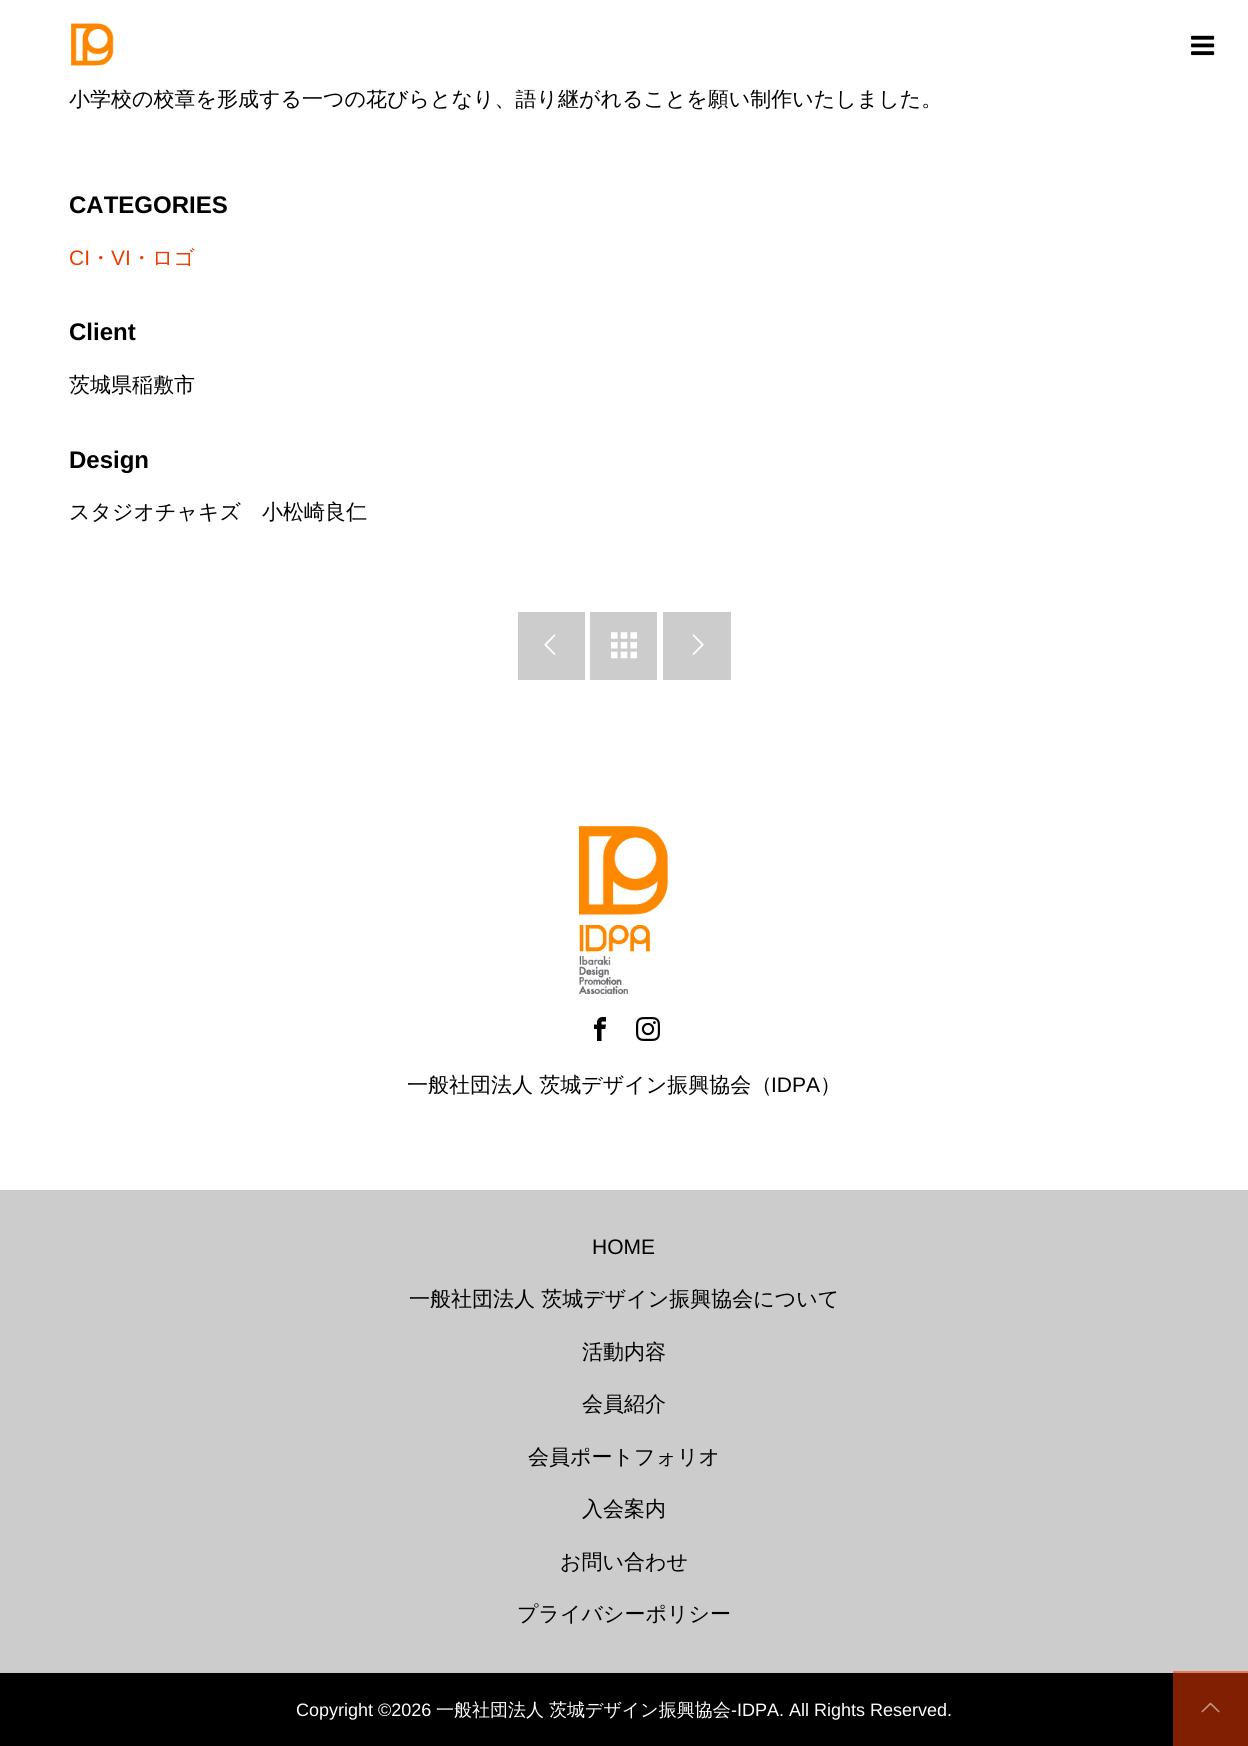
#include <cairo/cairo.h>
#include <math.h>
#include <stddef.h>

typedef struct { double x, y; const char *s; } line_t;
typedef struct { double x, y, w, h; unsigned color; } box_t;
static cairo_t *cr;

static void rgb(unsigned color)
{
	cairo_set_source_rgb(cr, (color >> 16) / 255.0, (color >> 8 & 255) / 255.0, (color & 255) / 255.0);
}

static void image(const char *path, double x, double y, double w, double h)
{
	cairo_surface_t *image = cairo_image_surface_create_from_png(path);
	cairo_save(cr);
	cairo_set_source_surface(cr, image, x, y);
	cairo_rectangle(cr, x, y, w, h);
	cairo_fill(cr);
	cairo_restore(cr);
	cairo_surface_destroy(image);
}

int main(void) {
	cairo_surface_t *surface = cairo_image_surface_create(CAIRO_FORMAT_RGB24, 1248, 1746);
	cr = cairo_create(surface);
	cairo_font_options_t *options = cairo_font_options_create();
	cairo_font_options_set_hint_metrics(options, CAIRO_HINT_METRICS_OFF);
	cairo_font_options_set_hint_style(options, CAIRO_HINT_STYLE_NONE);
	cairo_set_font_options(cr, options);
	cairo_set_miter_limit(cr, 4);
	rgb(0xffffff);
	cairo_paint(cr);
	image("img/1.png", 69, 23, 45, 43);
	image("img/2.png", 1191, 35, 24, 21);
	rgb(0xcccccc);
	cairo_rectangle(cr, 518, 612, 67, 68);
	cairo_fill(cr);
	image("img/3.png", 544, 634, 12, 21);
	cairo_rectangle(cr, 590, 612, 67, 68);
	cairo_fill(cr);
	image("img/4.png", 611, 632, 26, 27);
	cairo_rectangle(cr, 663, 612, 68, 68);
	cairo_fill(cr);
	image("img/5.png", 692, 634, 12, 21);
	image("img/6.png", 579, 826, 91, 168);
	image("img/7.png", 594, 1017, 12, 24);
	image("img/8.png", 636, 1017, 24, 24);
	{
		static const box_t items[] = {
			{0, 1190, 1248, 483, 0xcccccc},
			{1173, 1671, 75, 2, 0xde7e5e},
			{0, 1673, 1173, 73, 0x000000},
			{1173, 1673, 75, 73, 0x812000},
		};
		for (size_t i = 0; i < sizeof items / sizeof *items; i++) {
			rgb(items[i].color);
			cairo_rectangle(cr, items[i].x, items[i].y, items[i].w, items[i].h);
			cairo_fill(cr);
		}
	}
	image("img/9.png", 1201, 1702, 19, 11);
	cairo_select_font_face(cr, "WenQuanYi Zen Hei Medium", CAIRO_FONT_SLANT_NORMAL, CAIRO_FONT_WEIGHT_NORMAL);
	cairo_set_font_size(cr, 21);
	rgb(0x000000);
	cairo_move_to(cr, 69, 106);
	cairo_show_text(cr, "小学校の校章を形成する一つの花びらとなり、語り継がれることを願い制作いたしました。");
	cairo_set_source_rgba(cr, 1, 1, 1, 0.8);
	cairo_rectangle(cr, 79, 88, 706, 2);
	cairo_fill(cr);
	cairo_select_font_face(cr, "Liberation Sans", CAIRO_FONT_SLANT_NORMAL, CAIRO_FONT_WEIGHT_BOLD);
	cairo_set_font_size(cr, 24);
	rgb(0x000000);
	cairo_move_to(cr, 69, 213);
	cairo_show_text(cr, "CATEGORIES");
	cairo_select_font_face(cr, "Liberation Sans", CAIRO_FONT_SLANT_NORMAL, CAIRO_FONT_WEIGHT_NORMAL);
	cairo_set_font_size(cr, 21);
	rgb(0xee3c00);
	cairo_move_to(cr, 69, 265);
	cairo_show_text(cr, "CI");
	cairo_select_font_face(cr, "WenQuanYi Zen Hei Medium", CAIRO_FONT_SLANT_NORMAL, CAIRO_FONT_WEIGHT_NORMAL);
	cairo_move_to(cr, 90, 265);
	cairo_show_text(cr, "・");
	cairo_select_font_face(cr, "Liberation Sans", CAIRO_FONT_SLANT_NORMAL, CAIRO_FONT_WEIGHT_NORMAL);
	cairo_move_to(cr, 111, 265);
	cairo_show_text(cr, "VI");
	cairo_select_font_face(cr, "WenQuanYi Zen Hei Medium", CAIRO_FONT_SLANT_NORMAL, CAIRO_FONT_WEIGHT_NORMAL);
	cairo_move_to(cr, 131, 265);
	cairo_show_text(cr, "・ロゴ");
	cairo_select_font_face(cr, "Liberation Sans", CAIRO_FONT_SLANT_NORMAL, CAIRO_FONT_WEIGHT_BOLD);
	cairo_set_font_size(cr, 24);
	rgb(0x000000);
	cairo_move_to(cr, 69, 340);
	cairo_show_text(cr, "Client");
	cairo_select_font_face(cr, "WenQuanYi Zen Hei Medium", CAIRO_FONT_SLANT_NORMAL, CAIRO_FONT_WEIGHT_NORMAL);
	cairo_set_font_size(cr, 21);
	cairo_move_to(cr, 69, 392);
	cairo_show_text(cr, "茨城県稲敷市");
	cairo_select_font_face(cr, "Liberation Sans", CAIRO_FONT_SLANT_NORMAL, CAIRO_FONT_WEIGHT_BOLD);
	cairo_set_font_size(cr, 24);
	cairo_move_to(cr, 69, 468);
	cairo_show_text(cr, "Design");
	cairo_select_font_face(cr, "WenQuanYi Zen Hei Medium", CAIRO_FONT_SLANT_NORMAL, CAIRO_FONT_WEIGHT_NORMAL);
	cairo_set_font_size(cr, 21);
	cairo_move_to(cr, 69, 519);
	cairo_show_text(cr, "スタジオチャキズ　小松崎良仁");
	cairo_move_to(cr, 407, 1092);
	cairo_show_text(cr, "一般社団法人 茨城デザイン振興協会（");
	cairo_select_font_face(cr, "Liberation Sans", CAIRO_FONT_SLANT_NORMAL, CAIRO_FONT_WEIGHT_NORMAL);
	cairo_move_to(cr, 771, 1092);
	cairo_show_text(cr, "IDPA");
	cairo_select_font_face(cr, "WenQuanYi Zen Hei Medium", CAIRO_FONT_SLANT_NORMAL, CAIRO_FONT_WEIGHT_NORMAL);
	cairo_move_to(cr, 820, 1092);
	cairo_show_text(cr, "）");
	cairo_select_font_face(cr, "Liberation Sans", CAIRO_FONT_SLANT_NORMAL, CAIRO_FONT_WEIGHT_NORMAL);
	cairo_move_to(cr, 592, 1254);
	cairo_show_text(cr, "HOME");
	cairo_select_font_face(cr, "WenQuanYi Zen Hei Medium", CAIRO_FONT_SLANT_NORMAL, CAIRO_FONT_WEIGHT_NORMAL);
	{
		static const line_t items[] = {
			{409, 1306, "一般社団法人 茨城デザイン振興協会について"},
			{582, 1359, "活動内容"},
			{582, 1411, "会員紹介"},
			{528, 1464, "会員ポートフォリオ"},
			{582, 1516, "入会案内"},
			{560, 1569, "お問い合わせ"},
			{517, 1621, "プライバシーポリシー"},
		};
		for (size_t i = 0; i < sizeof items / sizeof *items; i++) {
			cairo_move_to(cr, items[i].x, items[i].y);
			cairo_show_text(cr, items[i].s);
		}
	}
	cairo_select_font_face(cr, "Liberation Sans", CAIRO_FONT_SLANT_NORMAL, CAIRO_FONT_WEIGHT_NORMAL);
	cairo_set_font_size(cr, 18);
	rgb(0xffffff);
	cairo_move_to(cr, 296, 1716);
	cairo_show_text(cr, "Copyright ©2026");
	cairo_select_font_face(cr, "WenQuanYi Zen Hei Medium", CAIRO_FONT_SLANT_NORMAL, CAIRO_FONT_WEIGHT_NORMAL);
	cairo_move_to(cr, 436, 1716);
	cairo_show_text(cr, "一般社団法人");
	cairo_move_to(cr, 549, 1716);
	cairo_show_text(cr, "茨城デザイン振興協会");
	cairo_select_font_face(cr, "Liberation Sans", CAIRO_FONT_SLANT_NORMAL, CAIRO_FONT_WEIGHT_NORMAL);
	cairo_move_to(cr, 731, 1716);
	cairo_show_text(cr, "-IDPA. All Rights Reserved.");
	cairo_surface_write_to_png(surface, "page.png");
	cairo_font_options_destroy(options);
	cairo_destroy(cr);
	cairo_surface_destroy(surface);
	return 0;
}
